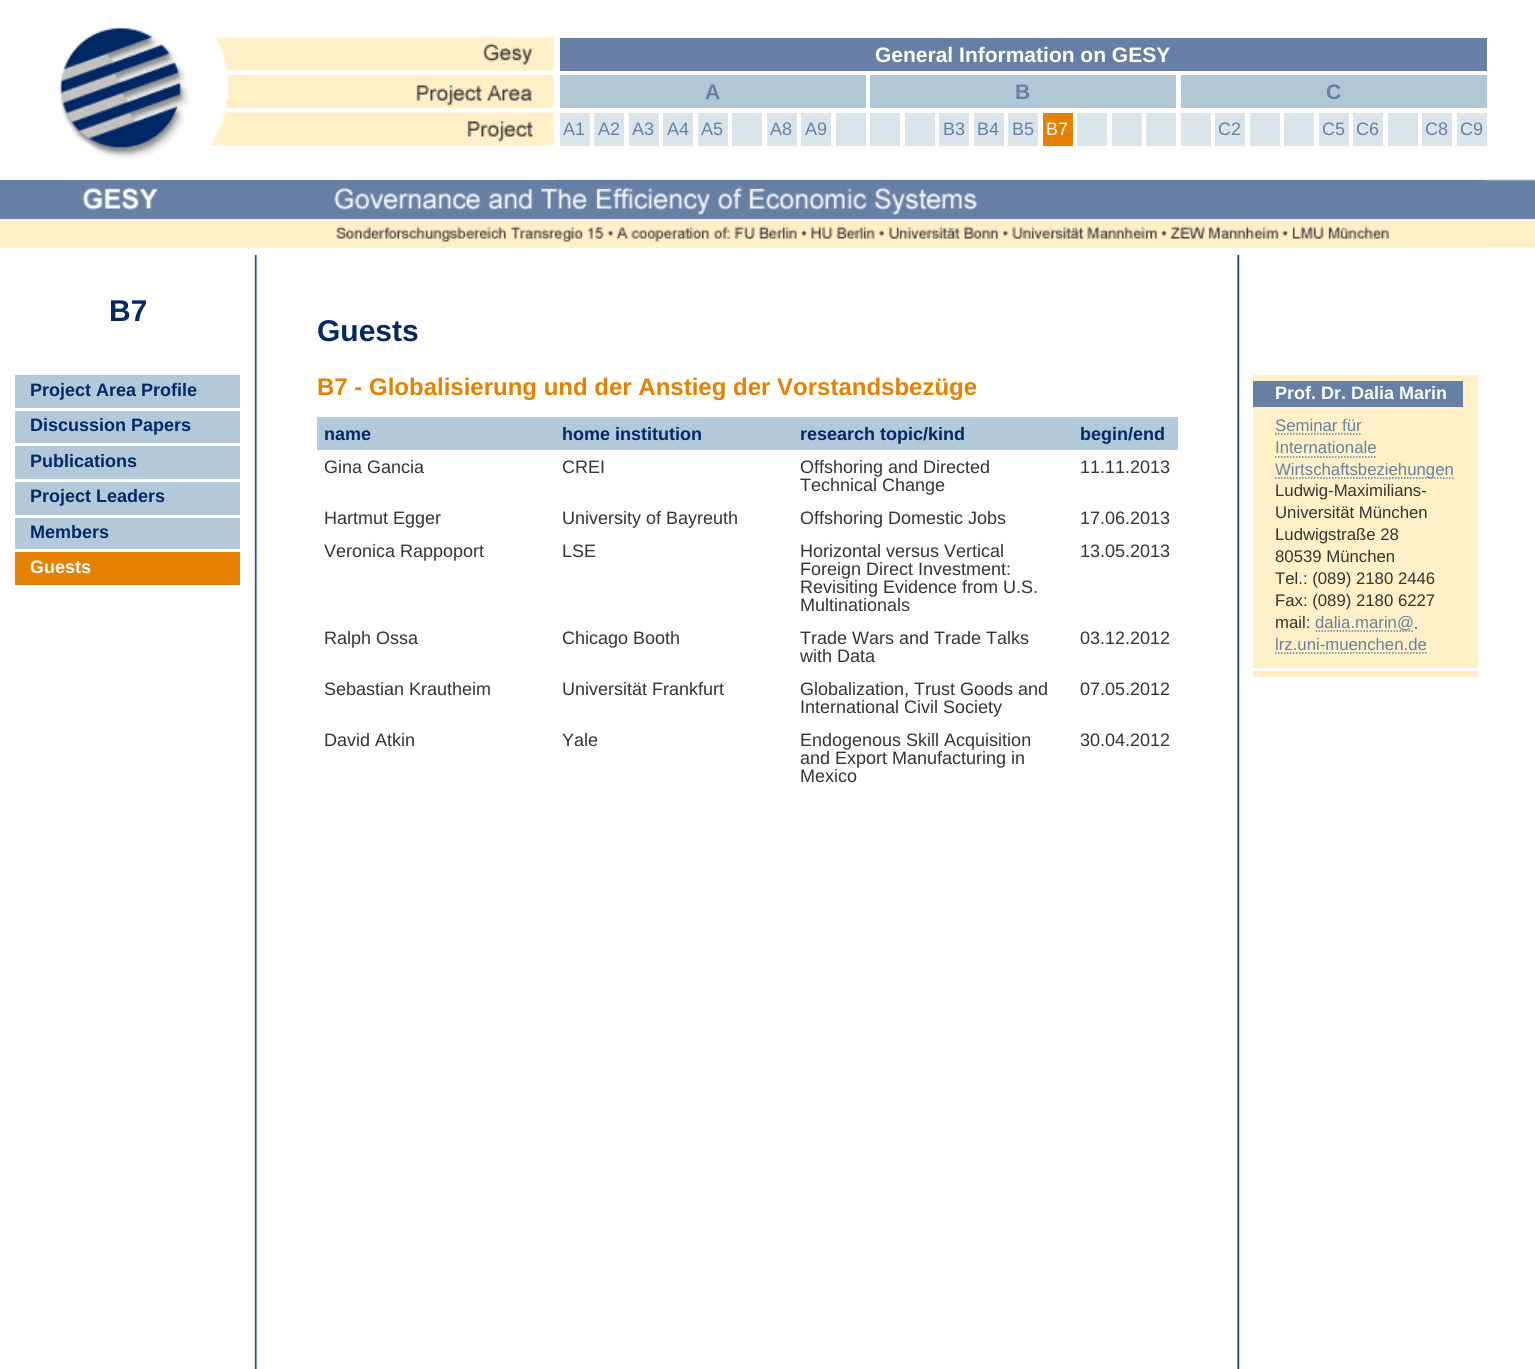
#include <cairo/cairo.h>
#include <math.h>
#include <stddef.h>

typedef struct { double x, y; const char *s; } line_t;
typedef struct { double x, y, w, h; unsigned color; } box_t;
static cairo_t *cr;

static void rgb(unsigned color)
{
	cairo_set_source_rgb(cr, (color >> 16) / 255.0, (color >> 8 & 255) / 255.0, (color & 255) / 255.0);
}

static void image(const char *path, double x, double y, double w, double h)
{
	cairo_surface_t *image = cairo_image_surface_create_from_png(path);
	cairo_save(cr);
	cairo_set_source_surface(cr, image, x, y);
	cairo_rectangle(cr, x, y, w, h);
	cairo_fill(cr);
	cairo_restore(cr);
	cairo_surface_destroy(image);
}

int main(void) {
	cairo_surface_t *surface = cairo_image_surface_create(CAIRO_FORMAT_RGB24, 1535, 1369);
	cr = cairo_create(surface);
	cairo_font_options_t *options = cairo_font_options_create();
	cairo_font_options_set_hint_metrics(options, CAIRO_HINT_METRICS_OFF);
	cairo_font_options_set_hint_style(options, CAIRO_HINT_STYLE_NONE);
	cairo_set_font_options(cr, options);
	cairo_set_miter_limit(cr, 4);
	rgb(0xffffff);
	cairo_paint(cr);
	image("img/1.png", 254, 255, 986, 1114);
	image("img/2.png", 0, 179, 1535, 69);
	rgb(0xffffff);
	cairo_rectangle(cr, 0, 179, 555, 1);
	cairo_fill(cr);
	image("img/3.png", 59, 27, 495, 132);
	{
		static const box_t items[] = {
			{560, 38, 927, 33, 0x677fa4},
			{560, 75, 306, 33, 0xb3c8d6},
			{560, 113, 30, 33, 0xdae4eb},
			{594, 113, 30, 33, 0xdae4eb},
			{629, 113, 30, 33, 0xdae4eb},
			{663, 113, 30, 33, 0xdae4eb},
			{698, 113, 30, 33, 0xdae4eb},
			{732, 113, 30, 33, 0xdae4eb},
			{767, 113, 30, 33, 0xdae4eb},
			{801, 113, 30, 33, 0xdae4eb},
			{836, 113, 30, 33, 0xdae4eb},
			{870, 75, 306, 33, 0xb3c8d6},
			{870, 113, 30, 33, 0xdae4eb},
			{905, 113, 30, 33, 0xdae4eb},
			{939, 113, 30, 33, 0xdae4eb},
			{974, 113, 30, 33, 0xdae4eb},
			{1008, 113, 30, 33, 0xdae4eb},
			{1043, 113, 30, 33, 0xe68000},
			{1077, 113, 30, 33, 0xdae4eb},
			{1112, 113, 30, 33, 0xdae4eb},
			{1146, 113, 30, 33, 0xdae4eb},
			{1181, 75, 306, 33, 0xb3c8d6},
			{1181, 113, 30, 33, 0xdae4eb},
			{1215, 113, 30, 33, 0xdae4eb},
			{1250, 113, 30, 33, 0xdae4eb},
			{1284, 113, 30, 33, 0xdae4eb},
			{1319, 113, 30, 33, 0xdae4eb},
			{1353, 113, 30, 33, 0xdae4eb},
			{1388, 113, 30, 33, 0xdae4eb},
			{1422, 113, 30, 33, 0xdae4eb},
			{1457, 113, 30, 33, 0xdae4eb},
		};
		for (size_t i = 0; i < sizeof items / sizeof *items; i++) {
			rgb(items[i].color);
			cairo_rectangle(cr, items[i].x, items[i].y, items[i].w, items[i].h);
			cairo_fill(cr);
		}
	}
	image("img/4.png", 0, 180, 1485, 68);
	{
		static const box_t items[] = {
			{15, 375, 225, 33, 0xb3c8d8},
			{15, 411, 225, 32, 0xb3c8d8},
			{15, 446, 225, 33, 0xb3c8d8},
			{15, 482, 225, 33, 0xb3c8d8},
			{15, 518, 225, 31, 0xb3c8d8},
			{15, 552, 225, 33, 0xe68000},
			{317, 417, 861, 33, 0xb3c8d8},
			{1253, 375, 225, 302, 0xfff0c7},
			{1253, 381, 210, 26, 0x677fa4},
		};
		for (size_t i = 0; i < sizeof items / sizeof *items; i++) {
			rgb(items[i].color);
			cairo_rectangle(cr, items[i].x, items[i].y, items[i].w, items[i].h);
			cairo_fill(cr);
		}
	}
	cairo_new_path(cr);
	cairo_move_to(cr, 1275, 434);
	cairo_line_to(cr, 1362, 434);
	cairo_set_line_width(cr, 1.5);
	cairo_set_dash(cr, (double[]){1.5, 1.5}, 2, 0);
	cairo_stroke(cr);
	cairo_new_path(cr);
	cairo_move_to(cr, 1275, 457);
	cairo_line_to(cr, 1377, 457);
	cairo_stroke(cr);
	cairo_new_path(cr);
	cairo_move_to(cr, 1275, 478);
	cairo_line_to(cr, 1455, 478);
	cairo_stroke(cr);
	cairo_new_path(cr);
	cairo_move_to(cr, 1315.5, 631);
	cairo_line_to(cr, 1414.5, 631);
	cairo_stroke(cr);
	cairo_rectangle(cr, 1415, 627, 2, 2);
	cairo_fill(cr);
	cairo_new_path(cr);
	cairo_move_to(cr, 1275, 653);
	cairo_line_to(cr, 1428, 653);
	cairo_stroke(cr);
	rgb(0xffffff);
	cairo_rectangle(cr, 1253, 668, 225, 3);
	cairo_fill(cr);
	cairo_select_font_face(cr, "Liberation Sans", CAIRO_FONT_SLANT_NORMAL, CAIRO_FONT_WEIGHT_BOLD);
	cairo_set_font_size(cr, 21);
	cairo_move_to(cr, 875, 62);
	cairo_show_text(cr, "General Information on GESY");
	rgb(0x677fa4);
	cairo_move_to(cr, 705, 99);
	cairo_show_text(cr, "A");
	cairo_select_font_face(cr, "Liberation Sans", CAIRO_FONT_SLANT_NORMAL, CAIRO_FONT_WEIGHT_NORMAL);
	cairo_set_font_size(cr, 18);
	{
		static const line_t items[] = {
			{563, 135, "A1"},
			{598, 135, "A2"},
			{632, 135, "A3"},
			{667, 135, "A4"},
			{701, 135, "A5"},
			{770, 135, "A8"},
			{805, 135, "A9"},
		};
		for (size_t i = 0; i < sizeof items / sizeof *items; i++) {
			cairo_move_to(cr, items[i].x, items[i].y);
			cairo_show_text(cr, items[i].s);
		}
	}
	cairo_select_font_face(cr, "Liberation Sans", CAIRO_FONT_SLANT_NORMAL, CAIRO_FONT_WEIGHT_BOLD);
	cairo_set_font_size(cr, 21);
	cairo_move_to(cr, 1015, 99);
	cairo_show_text(cr, "B");
	cairo_select_font_face(cr, "Liberation Sans", CAIRO_FONT_SLANT_NORMAL, CAIRO_FONT_WEIGHT_NORMAL);
	cairo_set_font_size(cr, 18);
	{
		static const line_t items[] = {
			{943, 135, "B3"},
			{977, 135, "B4"},
			{1012, 135, "B5"},
		};
		for (size_t i = 0; i < sizeof items / sizeof *items; i++) {
			cairo_move_to(cr, items[i].x, items[i].y);
			cairo_show_text(cr, items[i].s);
		}
	}
	rgb(0xffffff);
	cairo_move_to(cr, 1046, 135);
	cairo_show_text(cr, "B7");
	cairo_select_font_face(cr, "Liberation Sans", CAIRO_FONT_SLANT_NORMAL, CAIRO_FONT_WEIGHT_BOLD);
	cairo_set_font_size(cr, 21);
	rgb(0x677fa4);
	cairo_move_to(cr, 1326, 99);
	cairo_show_text(cr, "C");
	cairo_select_font_face(cr, "Liberation Sans", CAIRO_FONT_SLANT_NORMAL, CAIRO_FONT_WEIGHT_NORMAL);
	cairo_set_font_size(cr, 18);
	{
		static const line_t items[] = {
			{1218, 135, "C2"},
			{1322, 135, "C5"},
			{1356, 135, "C6"},
			{1425, 135, "C8"},
			{1460, 135, "C9"},
		};
		for (size_t i = 0; i < sizeof items / sizeof *items; i++) {
			cairo_move_to(cr, items[i].x, items[i].y);
			cairo_show_text(cr, items[i].s);
		}
	}
	cairo_select_font_face(cr, "Liberation Sans", CAIRO_FONT_SLANT_NORMAL, CAIRO_FONT_WEIGHT_BOLD);
	cairo_set_font_size(cr, 30);
	rgb(0x002966);
	cairo_move_to(cr, 109, 321);
	cairo_show_text(cr, "B7");
	cairo_set_font_size(cr, 18);
	{
		static const line_t items[] = {
			{30, 396, "Project Area Profile"},
			{30, 431, "Discussion Papers"},
			{30, 467, "Publications"},
			{30, 502, "Project Leaders"},
			{30, 538, "Members"},
		};
		for (size_t i = 0; i < sizeof items / sizeof *items; i++) {
			cairo_move_to(cr, items[i].x, items[i].y);
			cairo_show_text(cr, items[i].s);
		}
	}
	rgb(0xffffff);
	cairo_move_to(cr, 30, 573);
	cairo_show_text(cr, "Guests");
	cairo_set_font_size(cr, 30);
	rgb(0x002966);
	cairo_move_to(cr, 317, 341);
	cairo_show_text(cr, "Guests");
	cairo_set_font_size(cr, 24);
	rgb(0xe68000);
	cairo_move_to(cr, 317, 395);
	cairo_show_text(cr, "B7 - Globalisierung und der Anstieg der Vorstandsbezüge");
	cairo_set_font_size(cr, 18);
	rgb(0x002966);
	{
		static const line_t items[] = {
			{324, 440, "name"},
			{562, 440, "home institution"},
			{800, 440, "research topic/kind"},
			{1080, 440, "begin/end"},
		};
		for (size_t i = 0; i < sizeof items / sizeof *items; i++) {
			cairo_move_to(cr, items[i].x, items[i].y);
			cairo_show_text(cr, items[i].s);
		}
	}
	cairo_select_font_face(cr, "Liberation Sans", CAIRO_FONT_SLANT_NORMAL, CAIRO_FONT_WEIGHT_NORMAL);
	rgb(0x333333);
	{
		static const line_t items[] = {
			{324, 473, "Gina Gancia"},
			{562, 473, "CREI"},
			{800, 473, "Offshoring and Directed"},
			{800, 491, "Technical Change"},
			{1080, 473, "11.11.2013"},
			{324, 524, "Hartmut Egger"},
			{562, 524, "University of Bayreuth"},
			{800, 524, "Offshoring Domestic Jobs"},
			{1080, 524, "17.06.2013"},
			{324, 557, "Veronica Rappoport"},
			{562, 557, "LSE"},
			{800, 557, "Horizontal versus Vertical"},
			{800, 575, "Foreign Direct Investment:"},
			{800, 593, "Revisiting Evidence from U.S."},
			{800, 611, "Multinationals"},
			{1080, 557, "13.05.2013"},
			{324, 644, "Ralph Ossa"},
			{562, 644, "Chicago Booth"},
			{800, 644, "Trade Wars and Trade Talks"},
			{800, 662, "with Data"},
			{1080, 644, "03.12.2012"},
			{324, 695, "Sebastian Krautheim"},
			{562, 695, "Universität Frankfurt"},
			{800, 695, "Globalization, Trust Goods and"},
			{800, 713, "International Civil Society"},
			{1080, 695, "07.05.2012"},
			{324, 746, "David Atkin"},
			{562, 746, "Yale"},
			{800, 746, "Endogenous Skill Acquisition"},
			{800, 764, "and Export Manufacturing in"},
			{800, 782, "Mexico"},
			{1080, 746, "30.04.2012"},
		};
		for (size_t i = 0; i < sizeof items / sizeof *items; i++) {
			cairo_move_to(cr, items[i].x, items[i].y);
			cairo_show_text(cr, items[i].s);
		}
	}
	cairo_select_font_face(cr, "Liberation Sans", CAIRO_FONT_SLANT_NORMAL, CAIRO_FONT_WEIGHT_BOLD);
	rgb(0xffffff);
	cairo_move_to(cr, 1275, 399);
	cairo_show_text(cr, "Prof. Dr. Dalia Marin");
	cairo_select_font_face(cr, "Liberation Sans", CAIRO_FONT_SLANT_NORMAL, CAIRO_FONT_WEIGHT_NORMAL);
	cairo_set_font_size(cr, 16.75);
	rgb(0x677fa4);
	{
		static const line_t items[] = {
			{1275, 431, "Seminar für"},
			{1275, 453, "Internationale"},
			{1275, 475, "Wirtschaftsbeziehungen"},
		};
		for (size_t i = 0; i < sizeof items / sizeof *items; i++) {
			cairo_move_to(cr, items[i].x, items[i].y);
			cairo_show_text(cr, items[i].s);
		}
	}
	rgb(0x333333);
	{
		static const line_t items[] = {
			{1275, 496, "Ludwig-Maximilians-"},
			{1275, 518, "Universität München"},
			{1275, 540, "Ludwigstraße 28"},
			{1275, 562, "80539 München"},
			{1275, 584, "Tel.: (089) 2180 2446"},
			{1275, 606, "Fax: (089) 2180 6227"},
			{1275, 628, "mail:"},
		};
		for (size_t i = 0; i < sizeof items / sizeof *items; i++) {
			cairo_move_to(cr, items[i].x, items[i].y);
			cairo_show_text(cr, items[i].s);
		}
	}
	rgb(0x677fa4);
	cairo_move_to(cr, 1315, 628);
	cairo_show_text(cr, "dalia.marin@");
	cairo_move_to(cr, 1275, 650);
	cairo_show_text(cr, "lrz.uni-muenchen.de");
	cairo_surface_write_to_png(surface, "page.png");
	cairo_font_options_destroy(options);
	cairo_destroy(cr);
	cairo_surface_destroy(surface);
	return 0;
}
